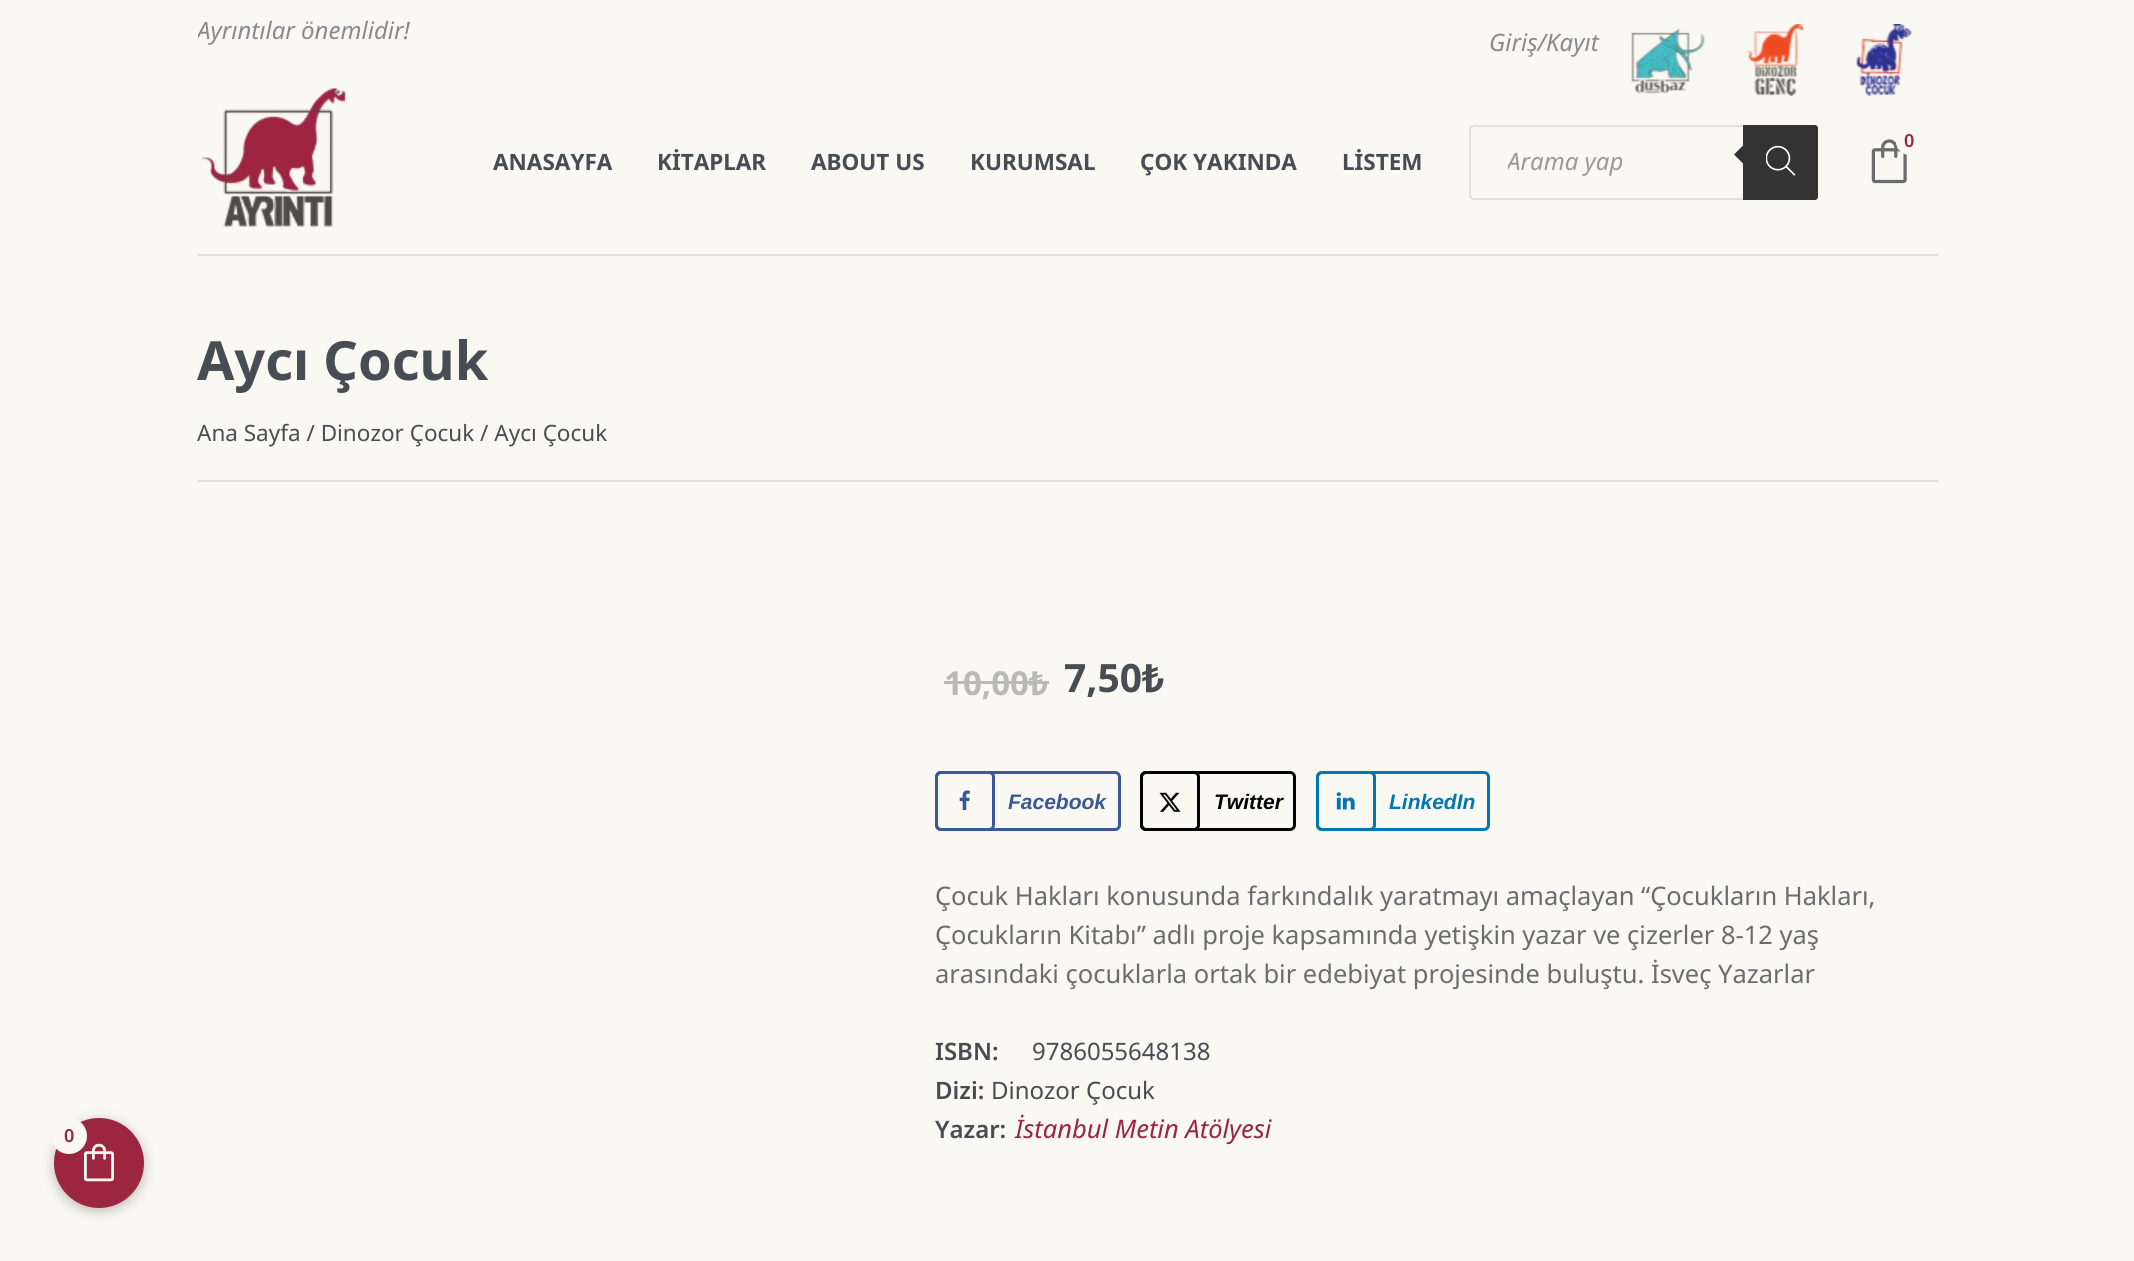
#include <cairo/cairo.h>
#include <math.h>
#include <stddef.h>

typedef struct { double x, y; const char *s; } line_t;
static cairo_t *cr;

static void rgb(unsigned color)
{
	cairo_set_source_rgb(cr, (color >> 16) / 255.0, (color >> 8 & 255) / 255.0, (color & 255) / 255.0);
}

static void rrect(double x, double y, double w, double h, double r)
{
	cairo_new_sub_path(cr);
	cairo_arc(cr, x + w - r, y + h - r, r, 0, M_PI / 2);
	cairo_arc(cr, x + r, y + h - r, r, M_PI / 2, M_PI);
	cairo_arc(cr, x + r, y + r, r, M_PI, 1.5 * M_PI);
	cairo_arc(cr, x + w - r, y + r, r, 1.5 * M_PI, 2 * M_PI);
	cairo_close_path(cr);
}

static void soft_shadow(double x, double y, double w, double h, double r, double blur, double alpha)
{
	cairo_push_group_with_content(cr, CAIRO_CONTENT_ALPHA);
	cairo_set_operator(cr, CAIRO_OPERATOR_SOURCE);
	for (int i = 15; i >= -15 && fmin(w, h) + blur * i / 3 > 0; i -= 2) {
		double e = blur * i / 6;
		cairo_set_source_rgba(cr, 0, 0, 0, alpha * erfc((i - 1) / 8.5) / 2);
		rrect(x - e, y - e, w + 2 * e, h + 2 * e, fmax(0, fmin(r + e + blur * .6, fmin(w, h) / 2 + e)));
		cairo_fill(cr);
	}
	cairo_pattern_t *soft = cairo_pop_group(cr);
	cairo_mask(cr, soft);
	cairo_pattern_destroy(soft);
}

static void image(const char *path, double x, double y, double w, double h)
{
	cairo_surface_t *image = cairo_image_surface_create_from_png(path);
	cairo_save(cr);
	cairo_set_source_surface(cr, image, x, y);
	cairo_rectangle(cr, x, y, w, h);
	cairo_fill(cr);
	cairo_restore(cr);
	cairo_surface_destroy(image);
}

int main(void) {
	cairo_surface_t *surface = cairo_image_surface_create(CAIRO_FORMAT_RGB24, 2134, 1261);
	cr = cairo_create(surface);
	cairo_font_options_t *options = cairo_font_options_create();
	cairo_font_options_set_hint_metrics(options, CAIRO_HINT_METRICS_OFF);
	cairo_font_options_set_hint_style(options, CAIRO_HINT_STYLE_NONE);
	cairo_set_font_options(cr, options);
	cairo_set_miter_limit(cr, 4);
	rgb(0xfaf8f2);
	cairo_paint(cr);
	image("img/1.png", 1631, 28, 74, 66);
	image("img/2.png", 1747, 24, 57, 72);
	image("img/3.png", 1856, 24, 56, 72);
	image("img/4.png", 201, 88, 145, 139);
	image("img/5.png", 1871, 139, 36, 45);
	rgb(0xfaf8f2);
	cairo_arc(cr, 1909.5, 141.5, 13.5, 0, 2 * M_PI);
	cairo_fill(cr);
	rrect(1470, 126, 347, 73, 4);
	rgb(0xdfdfdf);
	cairo_stroke(cr);
	rgb(0x333333);
	cairo_new_path(cr);
	cairo_move_to(cr, 1743, 125);
	cairo_line_to(cr, 1815, 125);
	cairo_curve_to(cr, 1816.5, 125, 1818, 126.5, 1818, 128);
	cairo_line_to(cr, 1818, 197);
	cairo_curve_to(cr, 1818, 198.5, 1816.5, 200, 1815, 200);
	cairo_line_to(cr, 1743, 200);
	cairo_close_path(cr);
	cairo_fill(cr);
	cairo_new_path(cr);
	cairo_move_to(cr, 1746, 142.5);
	cairo_line_to(cr, 1746, 166.5);
	cairo_line_to(cr, 1734, 154.5);
	cairo_close_path(cr);
	cairo_fill(cr);
	image("img/6.png", 1766, 145, 30, 31);
	rgb(0xdfdfdf);
	cairo_rectangle(cr, 198, 254, 1740, 2);
	cairo_fill(cr);
	rgb(0x000000);
	soft_shadow(54, 1121, 90, 90, 45, 6, 0.25);
	rgb(0x9c253f);
	cairo_arc(cr, 99, 1163, 45, 0, 2 * M_PI);
	cairo_fill(cr);
	image("img/7.png", 84, 1143, 30, 39);
	rgb(0xfaf8f2);
	cairo_arc(cr, 69, 1136, 18, 0, 2 * M_PI);
	cairo_fill(cr);
	rgb(0xdfdfdf);
	cairo_rectangle(cr, 198, 480, 1740, 2);
	cairo_fill(cr);
	rgb(0xb9b9b9);
	cairo_rectangle(cr, 944, 681, 105, 3);
	cairo_fill(cr);
	rrect(936.5, 772.5, 183, 57, 4.5);
	rgb(0x3a579a);
	cairo_set_line_width(cr, 3);
	cairo_stroke(cr);
	rrect(936.5, 772.5, 57, 57, 4.5);
	cairo_stroke(cr);
	image("img/8.png", 959, 790, 11, 20);
	rrect(1141.5, 772.5, 153, 57, 4.5);
	rgb(0x000000);
	cairo_stroke(cr);
	rrect(1141.5, 772.5, 57, 57, 4.5);
	cairo_stroke(cr);
	image("img/9.png", 1159, 792, 22, 20);
	rrect(1317.5, 772.5, 171, 57, 4.5);
	rgb(0x0077b5);
	cairo_stroke(cr);
	rrect(1317.5, 772.5, 57, 57, 4.5);
	cairo_stroke(cr);
	image("img/10.png", 1336, 792, 19, 18);
	cairo_save(cr);
	cairo_rectangle(cr, 198, 0, 1290, 60);
	cairo_clip(cr);
	cairo_select_font_face(cr, "Noto Sans", CAIRO_FONT_SLANT_ITALIC, CAIRO_FONT_WEIGHT_NORMAL);
	cairo_set_font_size(cr, 24);
	rgb(0x898a8d);
	cairo_move_to(cr, 197, 39);
	cairo_show_text(cr, "Ayrıntılar önemlidir!");
	cairo_restore(cr);
	cairo_select_font_face(cr, "Noto Sans", CAIRO_FONT_SLANT_ITALIC, CAIRO_FONT_WEIGHT_NORMAL);
	cairo_set_font_size(cr, 24);
	rgb(0x898a8d);
	cairo_move_to(cr, 1489, 51);
	cairo_show_text(cr, "Giriş/Kayıt");
	cairo_select_font_face(cr, "Noto Sans SemiBold", CAIRO_FONT_SLANT_NORMAL, CAIRO_FONT_WEIGHT_NORMAL);
	cairo_set_font_size(cr, 18);
	rgb(0x9c253f);
	cairo_move_to(cr, 1904, 147);
	cairo_show_text(cr, "0");
	cairo_select_font_face(cr, "Noto Sans", CAIRO_FONT_SLANT_NORMAL, CAIRO_FONT_WEIGHT_BOLD);
	cairo_set_font_size(cr, 22.5);
	rgb(0x484c53);
	{
		static const line_t items[] = {
			{493, 170, "ANASAYFA"},
			{657, 170, "KİTAPLAR"},
			{811, 170, "ABOUT US"},
			{970, 170, "KURUMSAL"},
			{1140, 170, "ÇOK YAKINDA"},
			{1342, 170, "LİSTEM"},
		};
		for (size_t i = 0; i < sizeof items / sizeof *items; i++) {
			cairo_move_to(cr, items[i].x, items[i].y);
			cairo_show_text(cr, items[i].s);
		}
	}
	cairo_save(cr);
	cairo_rectangle(cr, 1508, 146, 271, 33);
	cairo_clip(cr);
	cairo_select_font_face(cr, "Noto Sans", CAIRO_FONT_SLANT_ITALIC, CAIRO_FONT_WEIGHT_NORMAL);
	cairo_set_font_size(cr, 24);
	rgb(0x999999);
	cairo_move_to(cr, 1507, 170);
	cairo_show_text(cr, "Arama yap");
	cairo_restore(cr);
	cairo_select_font_face(cr, "Noto Sans SemiBold", CAIRO_FONT_SLANT_NORMAL, CAIRO_FONT_WEIGHT_NORMAL);
	cairo_set_font_size(cr, 18);
	rgb(0x9c253f);
	cairo_move_to(cr, 64, 1142);
	cairo_show_text(cr, "0");
	cairo_select_font_face(cr, "Noto Sans", CAIRO_FONT_SLANT_NORMAL, CAIRO_FONT_WEIGHT_BOLD);
	cairo_set_font_size(cr, 54);
	rgb(0x484c53);
	cairo_move_to(cr, 197, 380);
	cairo_show_text(cr, "Aycı Çocuk");
	cairo_select_font_face(cr, "Noto Sans", CAIRO_FONT_SLANT_NORMAL, CAIRO_FONT_WEIGHT_NORMAL);
	cairo_set_font_size(cr, 22.5);
	cairo_move_to(cr, 197, 441);
	cairo_show_text(cr, "Ana Sayfa / Dinozor Çocuk / Aycı Çocuk");
	cairo_select_font_face(cr, "Noto Sans", CAIRO_FONT_SLANT_NORMAL, CAIRO_FONT_WEIGHT_BOLD);
	cairo_set_font_size(cr, 33);
	rgb(0xb9b9b9);
	cairo_move_to(cr, 944, 695);
	cairo_show_text(cr, "10,00₺");
	cairo_set_font_size(cr, 39);
	rgb(0x484c53);
	cairo_move_to(cr, 1064, 692);
	cairo_show_text(cr, "7,50₺");
	cairo_select_font_face(cr, "Liberation Sans", CAIRO_FONT_SLANT_ITALIC, CAIRO_FONT_WEIGHT_BOLD);
	cairo_set_font_size(cr, 21);
	rgb(0x3a579a);
	cairo_move_to(cr, 1008, 809);
	cairo_show_text(cr, "Facebook");
	rgb(0x000000);
	cairo_move_to(cr, 1214, 809);
	cairo_show_text(cr, "Twitter");
	rgb(0x0077b5);
	cairo_move_to(cr, 1389, 809);
	cairo_show_text(cr, "LinkedIn");
	cairo_select_font_face(cr, "Noto Sans", CAIRO_FONT_SLANT_NORMAL, CAIRO_FONT_WEIGHT_NORMAL);
	cairo_set_font_size(cr, 25.5);
	rgb(0x6b6c70);
	{
		static const line_t items[] = {
			{935, 905, "Çocuk Hakları konusunda farkındalık yaratmayı amaçlayan “Çocukların Hakları,"},
			{935, 944, "Çocukların Kitabı” adlı proje kapsamında yetişkin yazar ve çizerler 8-12 yaş"},
			{935, 983, "arasındaki çocuklarla ortak bir edebiyat projesinde buluştu. İsveç Yazarlar"},
		};
		for (size_t i = 0; i < sizeof items / sizeof *items; i++) {
			cairo_move_to(cr, items[i].x, items[i].y);
			cairo_show_text(cr, items[i].s);
		}
	}
	cairo_select_font_face(cr, "Noto Sans SemiBold", CAIRO_FONT_SLANT_NORMAL, CAIRO_FONT_WEIGHT_NORMAL);
	cairo_set_font_size(cr, 24);
	rgb(0x484c53);
	cairo_move_to(cr, 935, 1060);
	cairo_show_text(cr, "ISBN:");
	cairo_select_font_face(cr, "Noto Sans", CAIRO_FONT_SLANT_NORMAL, CAIRO_FONT_WEIGHT_NORMAL);
	cairo_move_to(cr, 1032, 1060);
	cairo_show_text(cr, "9786055648138");
	cairo_select_font_face(cr, "Noto Sans SemiBold", CAIRO_FONT_SLANT_NORMAL, CAIRO_FONT_WEIGHT_NORMAL);
	cairo_move_to(cr, 935, 1099);
	cairo_show_text(cr, "Dizi:");
	cairo_select_font_face(cr, "Noto Sans", CAIRO_FONT_SLANT_NORMAL, CAIRO_FONT_WEIGHT_NORMAL);
	cairo_move_to(cr, 991, 1099);
	cairo_show_text(cr, "Dinozor Çocuk");
	cairo_select_font_face(cr, "Noto Sans SemiBold", CAIRO_FONT_SLANT_NORMAL, CAIRO_FONT_WEIGHT_NORMAL);
	cairo_move_to(cr, 935, 1138);
	cairo_show_text(cr, "Yazar:");
	cairo_select_font_face(cr, "Noto Sans", CAIRO_FONT_SLANT_ITALIC, CAIRO_FONT_WEIGHT_NORMAL);
	cairo_set_font_size(cr, 25.5);
	rgb(0x9c253f);
	cairo_move_to(cr, 1015, 1138);
	cairo_show_text(cr, "İstanbul Metin Atölyesi");
	cairo_surface_write_to_png(surface, "page.png");
	cairo_font_options_destroy(options);
	cairo_destroy(cr);
	cairo_surface_destroy(surface);
	return 0;
}
